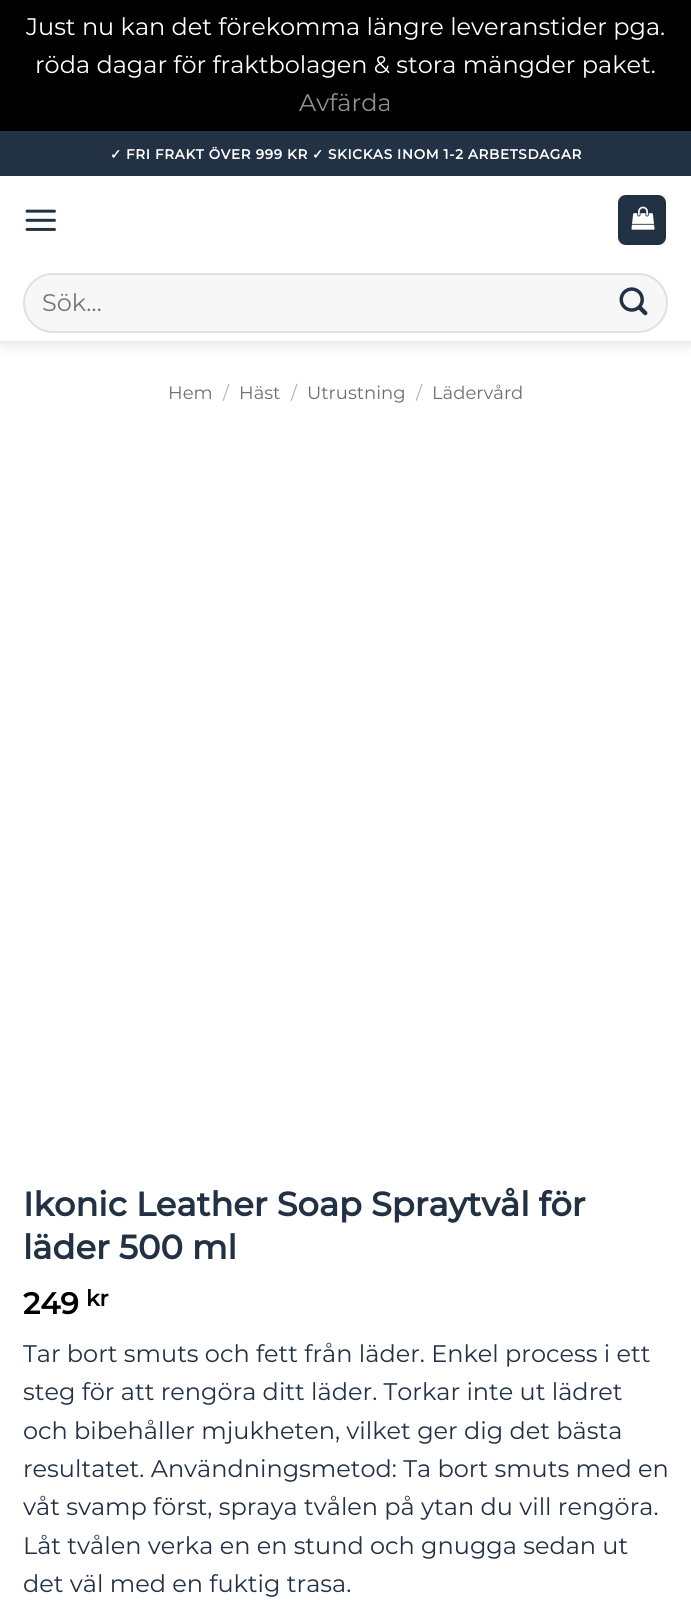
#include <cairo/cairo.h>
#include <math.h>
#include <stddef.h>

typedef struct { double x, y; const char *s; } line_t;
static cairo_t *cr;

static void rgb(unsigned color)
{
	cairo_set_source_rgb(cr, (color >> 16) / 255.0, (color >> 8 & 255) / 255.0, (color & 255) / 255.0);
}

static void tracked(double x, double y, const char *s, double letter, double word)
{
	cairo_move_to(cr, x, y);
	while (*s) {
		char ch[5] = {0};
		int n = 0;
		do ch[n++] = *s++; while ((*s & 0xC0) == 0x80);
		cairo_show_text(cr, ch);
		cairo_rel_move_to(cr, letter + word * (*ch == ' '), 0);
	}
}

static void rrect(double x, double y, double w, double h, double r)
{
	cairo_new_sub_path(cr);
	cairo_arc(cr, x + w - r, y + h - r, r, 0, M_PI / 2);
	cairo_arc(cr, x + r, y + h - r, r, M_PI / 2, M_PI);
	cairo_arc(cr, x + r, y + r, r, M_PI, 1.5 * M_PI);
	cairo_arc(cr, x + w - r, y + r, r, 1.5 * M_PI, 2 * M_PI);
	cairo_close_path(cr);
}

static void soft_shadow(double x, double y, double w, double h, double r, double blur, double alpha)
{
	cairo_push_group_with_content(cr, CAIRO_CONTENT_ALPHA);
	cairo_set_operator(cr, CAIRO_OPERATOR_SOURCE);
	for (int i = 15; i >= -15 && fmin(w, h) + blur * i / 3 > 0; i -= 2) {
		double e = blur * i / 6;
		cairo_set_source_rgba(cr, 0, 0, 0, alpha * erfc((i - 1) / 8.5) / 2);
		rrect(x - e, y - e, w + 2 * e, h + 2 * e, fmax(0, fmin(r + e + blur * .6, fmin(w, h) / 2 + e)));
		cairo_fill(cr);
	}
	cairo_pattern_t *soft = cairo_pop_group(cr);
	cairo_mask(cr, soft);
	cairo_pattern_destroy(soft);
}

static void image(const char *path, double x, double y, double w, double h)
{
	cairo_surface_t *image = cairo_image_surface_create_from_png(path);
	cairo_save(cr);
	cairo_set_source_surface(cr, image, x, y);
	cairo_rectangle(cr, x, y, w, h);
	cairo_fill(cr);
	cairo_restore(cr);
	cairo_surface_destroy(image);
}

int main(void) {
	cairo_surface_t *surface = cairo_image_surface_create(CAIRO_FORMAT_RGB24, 691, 1604);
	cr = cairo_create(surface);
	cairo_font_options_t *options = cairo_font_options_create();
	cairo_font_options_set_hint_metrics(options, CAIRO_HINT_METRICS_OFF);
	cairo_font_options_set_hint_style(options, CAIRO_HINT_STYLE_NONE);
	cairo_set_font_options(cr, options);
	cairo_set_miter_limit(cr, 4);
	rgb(0xffffff);
	cairo_paint(cr);
	rgb(0x000000);
	cairo_rectangle(cr, 0, 0, 691, 131);
	cairo_fill(cr);
	rgb(0x000000);
	soft_shadow(2, 132, 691, 210, 0, 7.5, 0.15);
	rgb(0x223144);
	cairo_rectangle(cr, 0, 131, 691, 45);
	cairo_fill(cr);
	rgb(0xffffff);
	cairo_rectangle(cr, 0, 176, 691, 165);
	cairo_fill(cr);
	image("img/1.png", 25, 209, 31, 22);
	rgb(0x223144);
	rrect(618, 195, 48, 50, 8);
	cairo_fill(cr);
	cairo_rectangle(cr, 619, 196, 46, 48);
	cairo_set_source_rgba(cr, 0, 0, 0, 0.05);
	cairo_stroke(cr);
	image("img/2.png", 631, 206, 24, 24);
	rgb(0xf7f7f7);
	rrect(23, 273, 645, 60, 30);
	cairo_fill(cr);
	rrect(24, 274, 643, 58, 29);
	cairo_set_source_rgba(cr, 0, 0, 0, 0.09);
	cairo_stroke(cr);
	image("img/3.png", 619, 287, 29, 29);
	cairo_select_font_face(cr, "Montserrat", CAIRO_FONT_SLANT_NORMAL, CAIRO_FONT_WEIGHT_NORMAL);
	cairo_set_font_size(cr, 24);
	rgb(0xffffff);
	cairo_move_to(cr, 26, 35);
	cairo_show_text(cr, "Just nu kan det förekomma längre leveranstider pga.");
	cairo_move_to(cr, 35, 73);
	cairo_show_text(cr, "röda dagar för fraktbolagen & stora mängder paket.");
	rgb(0x919191);
	cairo_move_to(cr, 299, 111);
	cairo_show_text(cr, "Avfärda");
	cairo_select_font_face(cr, "DejaVu Sans", CAIRO_FONT_SLANT_NORMAL, CAIRO_FONT_WEIGHT_BOLD);
	cairo_set_font_size(cr, 13.5);
	rgb(0xffffff);
	tracked(110, 159, "✓", 0.7, 0);
	cairo_select_font_face(cr, "Montserrat", CAIRO_FONT_SLANT_NORMAL, CAIRO_FONT_WEIGHT_BOLD);
	tracked(126, 159, "FRI FRAKT ÖVER 999 KR", 0.7, 0);
	cairo_select_font_face(cr, "DejaVu Sans", CAIRO_FONT_SLANT_NORMAL, CAIRO_FONT_WEIGHT_BOLD);
	tracked(312, 159, "✓", 0.7, 0);
	cairo_select_font_face(cr, "Montserrat", CAIRO_FONT_SLANT_NORMAL, CAIRO_FONT_WEIGHT_BOLD);
	tracked(328, 159, "SKICKAS INOM 1-2 ARBETSDAGAR", 0.7, 0);
	cairo_select_font_face(cr, "Montserrat", CAIRO_FONT_SLANT_NORMAL, CAIRO_FONT_WEIGHT_NORMAL);
	cairo_set_font_size(cr, 24);
	rgb(0x757575);
	cairo_move_to(cr, 42, 311);
	cairo_show_text(cr, "Sök…");
	cairo_set_font_size(cr, 18);
	rgb(0x6e6e6e);
	cairo_move_to(cr, 168, 399);
	cairo_show_text(cr, "Hem");
	rgb(0xb2b2b2);
	cairo_move_to(cr, 223, 399);
	cairo_show_text(cr, "/");
	rgb(0x6e6e6e);
	cairo_move_to(cr, 239, 399);
	cairo_show_text(cr, "Häst");
	rgb(0xb2b2b2);
	cairo_move_to(cr, 291, 399);
	cairo_show_text(cr, "/");
	rgb(0x6e6e6e);
	cairo_move_to(cr, 307, 399);
	cairo_show_text(cr, "Utrustning");
	rgb(0xb2b2b2);
	cairo_move_to(cr, 416, 399);
	cairo_show_text(cr, "/");
	rgb(0x6e6e6e);
	cairo_move_to(cr, 432, 399);
	cairo_show_text(cr, "Lädervård");
	cairo_select_font_face(cr, "Montserrat", CAIRO_FONT_SLANT_NORMAL, CAIRO_FONT_WEIGHT_BOLD);
	cairo_set_font_size(cr, 33.6);
	rgb(0x223144);
	cairo_move_to(cr, 23, 1216);
	cairo_show_text(cr, "Ikonic Leather Soap Spraytvål för");
	cairo_move_to(cr, 23, 1259);
	cairo_show_text(cr, "läder 500 ml");
	cairo_set_font_size(cr, 30);
	rgb(0x000000);
	cairo_move_to(cr, 23, 1314);
	cairo_show_text(cr, "249");
	cairo_set_font_size(cr, 22);
	cairo_move_to(cr, 86, 1306);
	cairo_show_text(cr, "kr");
	cairo_select_font_face(cr, "Montserrat", CAIRO_FONT_SLANT_NORMAL, CAIRO_FONT_WEIGHT_NORMAL);
	cairo_set_font_size(cr, 24);
	rgb(0x223144);
	{
		static const line_t items[] = {
			{23, 1362, "Tar bort smuts och fett från läder. Enkel process i ett"},
			{23, 1400, "steg för att rengöra ditt läder. Torkar inte ut lädret"},
			{23, 1439, "och bibehåller mjukheten, vilket ger dig det bästa"},
			{23, 1477, "resultatet. Användningsmetod: Ta bort smuts med en"},
			{23, 1515, "våt svamp först, spraya tvålen på ytan du vill rengöra."},
			{23, 1554, "Låt tvålen verka en en stund och gnugga sedan ut"},
			{23, 1592, "det väl med en fuktig trasa."},
		};
		for (size_t i = 0; i < sizeof items / sizeof *items; i++) {
			cairo_move_to(cr, items[i].x, items[i].y);
			cairo_show_text(cr, items[i].s);
		}
	}
	cairo_surface_write_to_png(surface, "page.png");
	cairo_font_options_destroy(options);
	cairo_destroy(cr);
	cairo_surface_destroy(surface);
	return 0;
}
